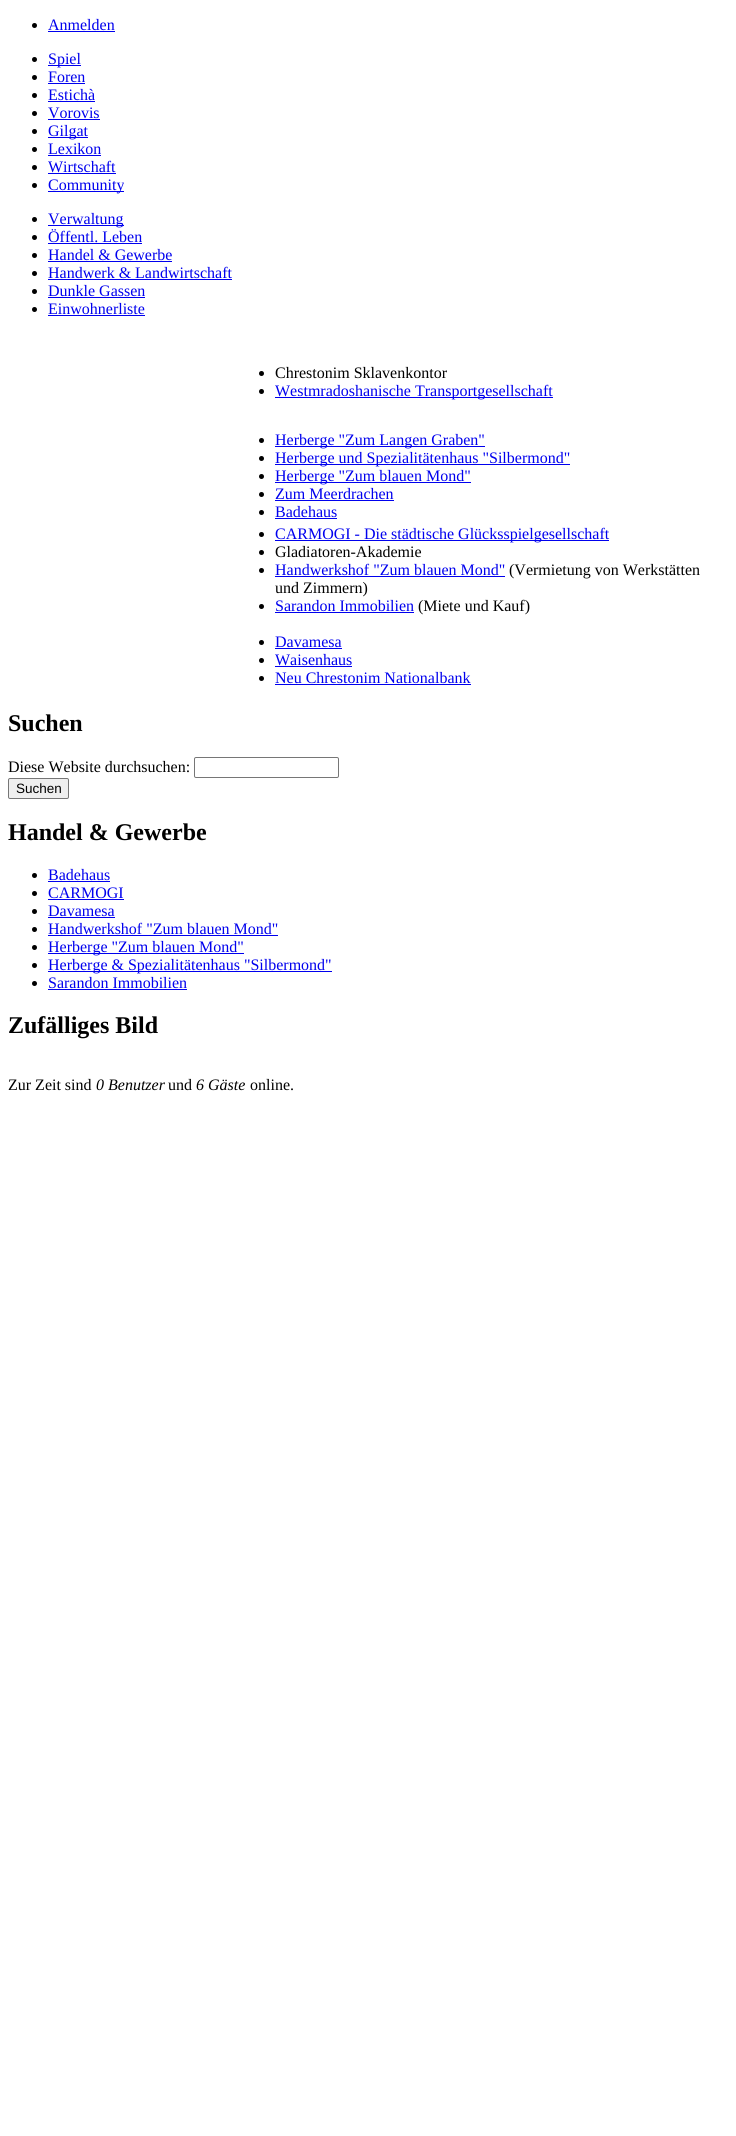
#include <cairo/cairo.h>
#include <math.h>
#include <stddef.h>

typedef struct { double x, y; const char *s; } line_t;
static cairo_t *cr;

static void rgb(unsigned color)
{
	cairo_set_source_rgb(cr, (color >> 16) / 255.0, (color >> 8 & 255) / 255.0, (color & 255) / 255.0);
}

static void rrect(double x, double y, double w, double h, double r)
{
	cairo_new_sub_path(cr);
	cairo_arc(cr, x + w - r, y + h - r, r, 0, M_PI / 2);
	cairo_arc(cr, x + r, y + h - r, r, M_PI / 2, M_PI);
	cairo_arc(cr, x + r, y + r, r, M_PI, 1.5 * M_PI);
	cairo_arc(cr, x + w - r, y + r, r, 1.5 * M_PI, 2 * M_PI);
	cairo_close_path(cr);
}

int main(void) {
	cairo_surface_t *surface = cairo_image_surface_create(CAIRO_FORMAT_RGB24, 736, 2136);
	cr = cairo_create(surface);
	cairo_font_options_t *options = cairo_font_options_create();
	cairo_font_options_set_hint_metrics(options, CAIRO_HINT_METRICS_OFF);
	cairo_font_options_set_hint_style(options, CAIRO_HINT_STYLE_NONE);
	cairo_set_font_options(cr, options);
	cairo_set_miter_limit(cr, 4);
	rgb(0xffffff);
	cairo_paint(cr);
	rgb(0x000000);
	cairo_arc(cr, 34.5, 25.5, 2.5, 0, 2 * M_PI);
	cairo_fill(cr);
	rgb(0x0000ee);
	cairo_rectangle(cr, 48, 31, 67, 1);
	cairo_fill(cr);
	rgb(0x000000);
	cairo_arc(cr, 34.5, 59.5, 2.5, 0, 2 * M_PI);
	cairo_fill(cr);
	rgb(0x0000ee);
	cairo_rectangle(cr, 48, 65, 33, 1);
	cairo_fill(cr);
	rgb(0x000000);
	cairo_arc(cr, 34.5, 77.5, 2.5, 0, 2 * M_PI);
	cairo_fill(cr);
	rgb(0x0000ee);
	cairo_rectangle(cr, 48, 83, 37, 1);
	cairo_fill(cr);
	rgb(0x000000);
	cairo_arc(cr, 34.5, 95.5, 2.5, 0, 2 * M_PI);
	cairo_fill(cr);
	rgb(0x0000ee);
	cairo_rectangle(cr, 48, 101, 47, 1);
	cairo_fill(cr);
	rgb(0x000000);
	cairo_arc(cr, 34.5, 113.5, 2.5, 0, 2 * M_PI);
	cairo_fill(cr);
	rgb(0x0000ee);
	cairo_rectangle(cr, 48, 119, 52, 1);
	cairo_fill(cr);
	rgb(0x000000);
	cairo_arc(cr, 34.5, 131.5, 2.5, 0, 2 * M_PI);
	cairo_fill(cr);
	rgb(0x0000ee);
	cairo_rectangle(cr, 48, 137, 40, 1);
	cairo_fill(cr);
	rgb(0x000000);
	cairo_arc(cr, 34.5, 149.5, 2.5, 0, 2 * M_PI);
	cairo_fill(cr);
	rgb(0x0000ee);
	cairo_rectangle(cr, 48, 155, 53, 1);
	cairo_fill(cr);
	rgb(0x000000);
	cairo_arc(cr, 34.5, 167.5, 2.5, 0, 2 * M_PI);
	cairo_fill(cr);
	rgb(0x0000ee);
	cairo_rectangle(cr, 48, 173, 68, 1);
	cairo_fill(cr);
	rgb(0x000000);
	cairo_arc(cr, 34.5, 185.5, 2.5, 0, 2 * M_PI);
	cairo_fill(cr);
	rgb(0x0000ee);
	cairo_rectangle(cr, 48, 191, 76, 1);
	cairo_fill(cr);
	rgb(0x000000);
	cairo_arc(cr, 34.5, 219.5, 2.5, 0, 2 * M_PI);
	cairo_fill(cr);
	rgb(0x0000ee);
	cairo_rectangle(cr, 48, 225, 76, 1);
	cairo_fill(cr);
	rgb(0x000000);
	cairo_arc(cr, 34.5, 237.5, 2.5, 0, 2 * M_PI);
	cairo_fill(cr);
	rgb(0x0000ee);
	cairo_rectangle(cr, 48, 243, 94, 1);
	cairo_fill(cr);
	rgb(0x000000);
	cairo_arc(cr, 34.5, 255.5, 2.5, 0, 2 * M_PI);
	cairo_fill(cr);
	rgb(0x0000ee);
	cairo_rectangle(cr, 48, 261, 124, 1);
	cairo_fill(cr);
	rgb(0x000000);
	cairo_arc(cr, 34.5, 273.5, 2.5, 0, 2 * M_PI);
	cairo_fill(cr);
	rgb(0x0000ee);
	cairo_rectangle(cr, 48, 279, 184, 1);
	cairo_fill(cr);
	rgb(0x000000);
	cairo_arc(cr, 34.5, 291.5, 2.5, 0, 2 * M_PI);
	cairo_fill(cr);
	rgb(0x0000ee);
	cairo_rectangle(cr, 48, 297, 97, 1);
	cairo_fill(cr);
	rgb(0x000000);
	cairo_arc(cr, 34.5, 309.5, 2.5, 0, 2 * M_PI);
	cairo_fill(cr);
	rgb(0x0000ee);
	cairo_rectangle(cr, 48, 315, 97, 1);
	cairo_fill(cr);
	rgb(0x000000);
	cairo_arc(cr, 261.5, 373.5, 2.5, 0, 2 * M_PI);
	cairo_fill(cr);
	cairo_arc(cr, 261.5, 391.5, 2.5, 0, 2 * M_PI);
	cairo_fill(cr);
	rgb(0x0000ee);
	cairo_rectangle(cr, 275, 397, 278, 1);
	cairo_fill(cr);
	rgb(0x000000);
	cairo_arc(cr, 261.5, 440.5, 2.5, 0, 2 * M_PI);
	cairo_fill(cr);
	rgb(0x0000ee);
	cairo_rectangle(cr, 275, 446, 210, 1);
	cairo_fill(cr);
	rgb(0x000000);
	cairo_arc(cr, 261.5, 458.5, 2.5, 0, 2 * M_PI);
	cairo_fill(cr);
	rgb(0x0000ee);
	cairo_rectangle(cr, 275, 464, 295, 1);
	cairo_fill(cr);
	rgb(0x000000);
	cairo_arc(cr, 261.5, 476.5, 2.5, 0, 2 * M_PI);
	cairo_fill(cr);
	rgb(0x0000ee);
	cairo_rectangle(cr, 275, 482, 196, 1);
	cairo_fill(cr);
	rgb(0x000000);
	cairo_arc(cr, 261.5, 494.5, 2.5, 0, 2 * M_PI);
	cairo_fill(cr);
	rgb(0x0000ee);
	cairo_rectangle(cr, 275, 500, 119, 1);
	cairo_fill(cr);
	rgb(0x000000);
	cairo_arc(cr, 261.5, 512.5, 2.5, 0, 2 * M_PI);
	cairo_fill(cr);
	rgb(0x0000ee);
	cairo_rectangle(cr, 275, 518, 62, 1);
	cairo_fill(cr);
	rgb(0x000000);
	cairo_arc(cr, 261.5, 534.5, 2.5, 0, 2 * M_PI);
	cairo_fill(cr);
	rgb(0x0000ee);
	cairo_rectangle(cr, 275, 540, 334, 1);
	cairo_fill(cr);
	rgb(0x000000);
	cairo_arc(cr, 261.5, 552.5, 2.5, 0, 2 * M_PI);
	cairo_fill(cr);
	cairo_arc(cr, 261.5, 570.5, 2.5, 0, 2 * M_PI);
	cairo_fill(cr);
	rgb(0x0000ee);
	cairo_rectangle(cr, 275, 576, 230, 1);
	cairo_fill(cr);
	rgb(0x000000);
	cairo_arc(cr, 261.5, 606.5, 2.5, 0, 2 * M_PI);
	cairo_fill(cr);
	rgb(0x0000ee);
	cairo_rectangle(cr, 275, 612, 139, 1);
	cairo_fill(cr);
	rgb(0x000000);
	cairo_arc(cr, 261.5, 642.5, 2.5, 0, 2 * M_PI);
	cairo_fill(cr);
	rgb(0x0000ee);
	cairo_rectangle(cr, 275, 648, 67, 1);
	cairo_fill(cr);
	rgb(0x000000);
	cairo_arc(cr, 261.5, 660.5, 2.5, 0, 2 * M_PI);
	cairo_fill(cr);
	rgb(0x0000ee);
	cairo_rectangle(cr, 275, 666, 77, 1);
	cairo_fill(cr);
	rgb(0x000000);
	cairo_arc(cr, 261.5, 678.5, 2.5, 0, 2 * M_PI);
	cairo_fill(cr);
	rgb(0x0000ee);
	cairo_rectangle(cr, 275, 684, 196, 1);
	cairo_fill(cr);
	rrect(194.5, 757.5, 144, 20, 1.5);
	rgb(0x767676);
	cairo_set_line_width(cr, 1);
	cairo_stroke(cr);
	rgb(0xefefef);
	rrect(8.5, 778.5, 60, 20, 1.5);
	cairo_fill_preserve(cr);
	rgb(0x767676);
	cairo_stroke(cr);
	rgb(0x000000);
	cairo_arc(cr, 34.5, 875.5, 2.5, 0, 2 * M_PI);
	cairo_fill(cr);
	rgb(0x0000ee);
	cairo_rectangle(cr, 48, 881, 62, 1);
	cairo_fill(cr);
	rgb(0x000000);
	cairo_arc(cr, 34.5, 893.5, 2.5, 0, 2 * M_PI);
	cairo_fill(cr);
	rgb(0x0000ee);
	cairo_rectangle(cr, 48, 899, 76, 1);
	cairo_fill(cr);
	rgb(0x000000);
	cairo_arc(cr, 34.5, 911.5, 2.5, 0, 2 * M_PI);
	cairo_fill(cr);
	rgb(0x0000ee);
	cairo_rectangle(cr, 48, 917, 67, 1);
	cairo_fill(cr);
	rgb(0x000000);
	cairo_arc(cr, 34.5, 929.5, 2.5, 0, 2 * M_PI);
	cairo_fill(cr);
	rgb(0x0000ee);
	cairo_rectangle(cr, 48, 935, 230, 1);
	cairo_fill(cr);
	rgb(0x000000);
	cairo_arc(cr, 34.5, 947.5, 2.5, 0, 2 * M_PI);
	cairo_fill(cr);
	rgb(0x0000ee);
	cairo_rectangle(cr, 48, 953, 196, 1);
	cairo_fill(cr);
	rgb(0x000000);
	cairo_arc(cr, 34.5, 965.5, 2.5, 0, 2 * M_PI);
	cairo_fill(cr);
	rgb(0x0000ee);
	cairo_rectangle(cr, 48, 971, 284, 1);
	cairo_fill(cr);
	rgb(0x000000);
	cairo_arc(cr, 34.5, 983.5, 2.5, 0, 2 * M_PI);
	cairo_fill(cr);
	rgb(0x0000ee);
	cairo_rectangle(cr, 48, 989, 139, 1);
	cairo_fill(cr);
	cairo_select_font_face(cr, "Liberation Serif", CAIRO_FONT_SLANT_NORMAL, CAIRO_FONT_WEIGHT_NORMAL);
	cairo_set_font_size(cr, 16);
	{
		static const line_t items[] = {
			{48, 30, "Anmelden"},
			{48, 64, "Spiel"},
			{48, 82, "Foren"},
			{48, 100, "Estichà"},
			{48, 118, "Vorovis"},
			{48, 136, "Gilgat"},
			{48, 154, "Lexikon"},
			{48, 172, "Wirtschaft"},
			{48, 190, "Community"},
			{48, 224, "Verwaltung"},
			{48, 242, "Öffentl. Leben"},
			{48, 260, "Handel & Gewerbe"},
			{48, 278, "Handwerk & Landwirtschaft"},
			{48, 296, "Dunkle Gassen"},
			{48, 314, "Einwohnerliste"},
		};
		for (size_t i = 0; i < sizeof items / sizeof *items; i++) {
			cairo_move_to(cr, items[i].x, items[i].y);
			cairo_show_text(cr, items[i].s);
		}
	}
	rgb(0x000000);
	cairo_move_to(cr, 275, 378);
	cairo_show_text(cr, "Chrestonim Sklavenkontor");
	rgb(0x0000ee);
	{
		static const line_t items[] = {
			{275, 396, "Westmradoshanische Transportgesellschaft"},
			{275, 445, "Herberge \"Zum Langen Graben\""},
			{275, 463, "Herberge und Spezialitätenhaus \"Silbermond\""},
			{275, 481, "Herberge \"Zum blauen Mond\""},
			{275, 499, "Zum Meerdrachen"},
			{275, 517, "Badehaus"},
			{275, 539, "CARMOGI - Die städtische Glücksspielgesellschaft"},
		};
		for (size_t i = 0; i < sizeof items / sizeof *items; i++) {
			cairo_move_to(cr, items[i].x, items[i].y);
			cairo_show_text(cr, items[i].s);
		}
	}
	rgb(0x000000);
	cairo_move_to(cr, 275, 557);
	cairo_show_text(cr, "Gladiatoren-Akademie");
	rgb(0x0000ee);
	cairo_move_to(cr, 275, 575);
	cairo_show_text(cr, "Handwerkshof \"Zum blauen Mond\"");
	rgb(0x000000);
	cairo_move_to(cr, 509, 575);
	cairo_show_text(cr, "(Vermietung von Werkstätten");
	cairo_move_to(cr, 275, 593);
	cairo_show_text(cr, "und Zimmern)");
	rgb(0x0000ee);
	cairo_move_to(cr, 275, 611);
	cairo_show_text(cr, "Sarandon Immobilien");
	rgb(0x000000);
	cairo_move_to(cr, 418, 611);
	cairo_show_text(cr, "(Miete und Kauf)");
	rgb(0x0000ee);
	{
		static const line_t items[] = {
			{275, 647, "Davamesa"},
			{275, 665, "Waisenhaus"},
			{275, 683, "Neu Chrestonim Nationalbank"},
		};
		for (size_t i = 0; i < sizeof items / sizeof *items; i++) {
			cairo_move_to(cr, items[i].x, items[i].y);
			cairo_show_text(cr, items[i].s);
		}
	}
	cairo_select_font_face(cr, "Liberation Serif", CAIRO_FONT_SLANT_NORMAL, CAIRO_FONT_WEIGHT_BOLD);
	cairo_set_font_size(cr, 24);
	rgb(0x000000);
	cairo_move_to(cr, 8, 731);
	cairo_show_text(cr, "Suchen");
	cairo_select_font_face(cr, "Liberation Serif", CAIRO_FONT_SLANT_NORMAL, CAIRO_FONT_WEIGHT_NORMAL);
	cairo_set_font_size(cr, 16);
	cairo_move_to(cr, 8, 772);
	cairo_show_text(cr, "Diese Website durchsuchen:");
	cairo_select_font_face(cr, "Liberation Sans", CAIRO_FONT_SLANT_NORMAL, CAIRO_FONT_WEIGHT_NORMAL);
	cairo_set_font_size(cr, 13.5);
	cairo_move_to(cr, 16, 793);
	cairo_show_text(cr, "Suchen");
	cairo_select_font_face(cr, "Liberation Serif", CAIRO_FONT_SLANT_NORMAL, CAIRO_FONT_WEIGHT_BOLD);
	cairo_set_font_size(cr, 24);
	cairo_move_to(cr, 8, 840);
	cairo_show_text(cr, "Handel & Gewerbe");
	cairo_select_font_face(cr, "Liberation Serif", CAIRO_FONT_SLANT_NORMAL, CAIRO_FONT_WEIGHT_NORMAL);
	cairo_set_font_size(cr, 16);
	rgb(0x0000ee);
	{
		static const line_t items[] = {
			{48, 880, "Badehaus"},
			{48, 898, "CARMOGI"},
			{48, 916, "Davamesa"},
			{48, 934, "Handwerkshof \"Zum blauen Mond\""},
			{48, 952, "Herberge \"Zum blauen Mond\""},
			{48, 970, "Herberge & Spezialitätenhaus \"Silbermond\""},
			{48, 988, "Sarandon Immobilien"},
		};
		for (size_t i = 0; i < sizeof items / sizeof *items; i++) {
			cairo_move_to(cr, items[i].x, items[i].y);
			cairo_show_text(cr, items[i].s);
		}
	}
	cairo_select_font_face(cr, "Liberation Serif", CAIRO_FONT_SLANT_NORMAL, CAIRO_FONT_WEIGHT_BOLD);
	cairo_set_font_size(cr, 24);
	rgb(0x000000);
	cairo_move_to(cr, 8, 1033);
	cairo_show_text(cr, "Zufälliges Bild");
	cairo_select_font_face(cr, "Liberation Serif", CAIRO_FONT_SLANT_NORMAL, CAIRO_FONT_WEIGHT_NORMAL);
	cairo_set_font_size(cr, 16);
	cairo_move_to(cr, 8, 1090);
	cairo_show_text(cr, "Zur Zeit sind");
	cairo_select_font_face(cr, "Liberation Serif", CAIRO_FONT_SLANT_ITALIC, CAIRO_FONT_WEIGHT_NORMAL);
	cairo_move_to(cr, 96, 1090);
	cairo_show_text(cr, "0 Benutzer");
	cairo_select_font_face(cr, "Liberation Serif", CAIRO_FONT_SLANT_NORMAL, CAIRO_FONT_WEIGHT_NORMAL);
	cairo_move_to(cr, 168, 1090);
	cairo_show_text(cr, "und");
	cairo_select_font_face(cr, "Liberation Serif", CAIRO_FONT_SLANT_ITALIC, CAIRO_FONT_WEIGHT_NORMAL);
	cairo_move_to(cr, 196, 1090);
	cairo_show_text(cr, "6 Gäste");
	cairo_select_font_face(cr, "Liberation Serif", CAIRO_FONT_SLANT_NORMAL, CAIRO_FONT_WEIGHT_NORMAL);
	cairo_move_to(cr, 250, 1090);
	cairo_show_text(cr, "online.");
	cairo_surface_write_to_png(surface, "page.png");
	cairo_font_options_destroy(options);
	cairo_destroy(cr);
	cairo_surface_destroy(surface);
	return 0;
}
